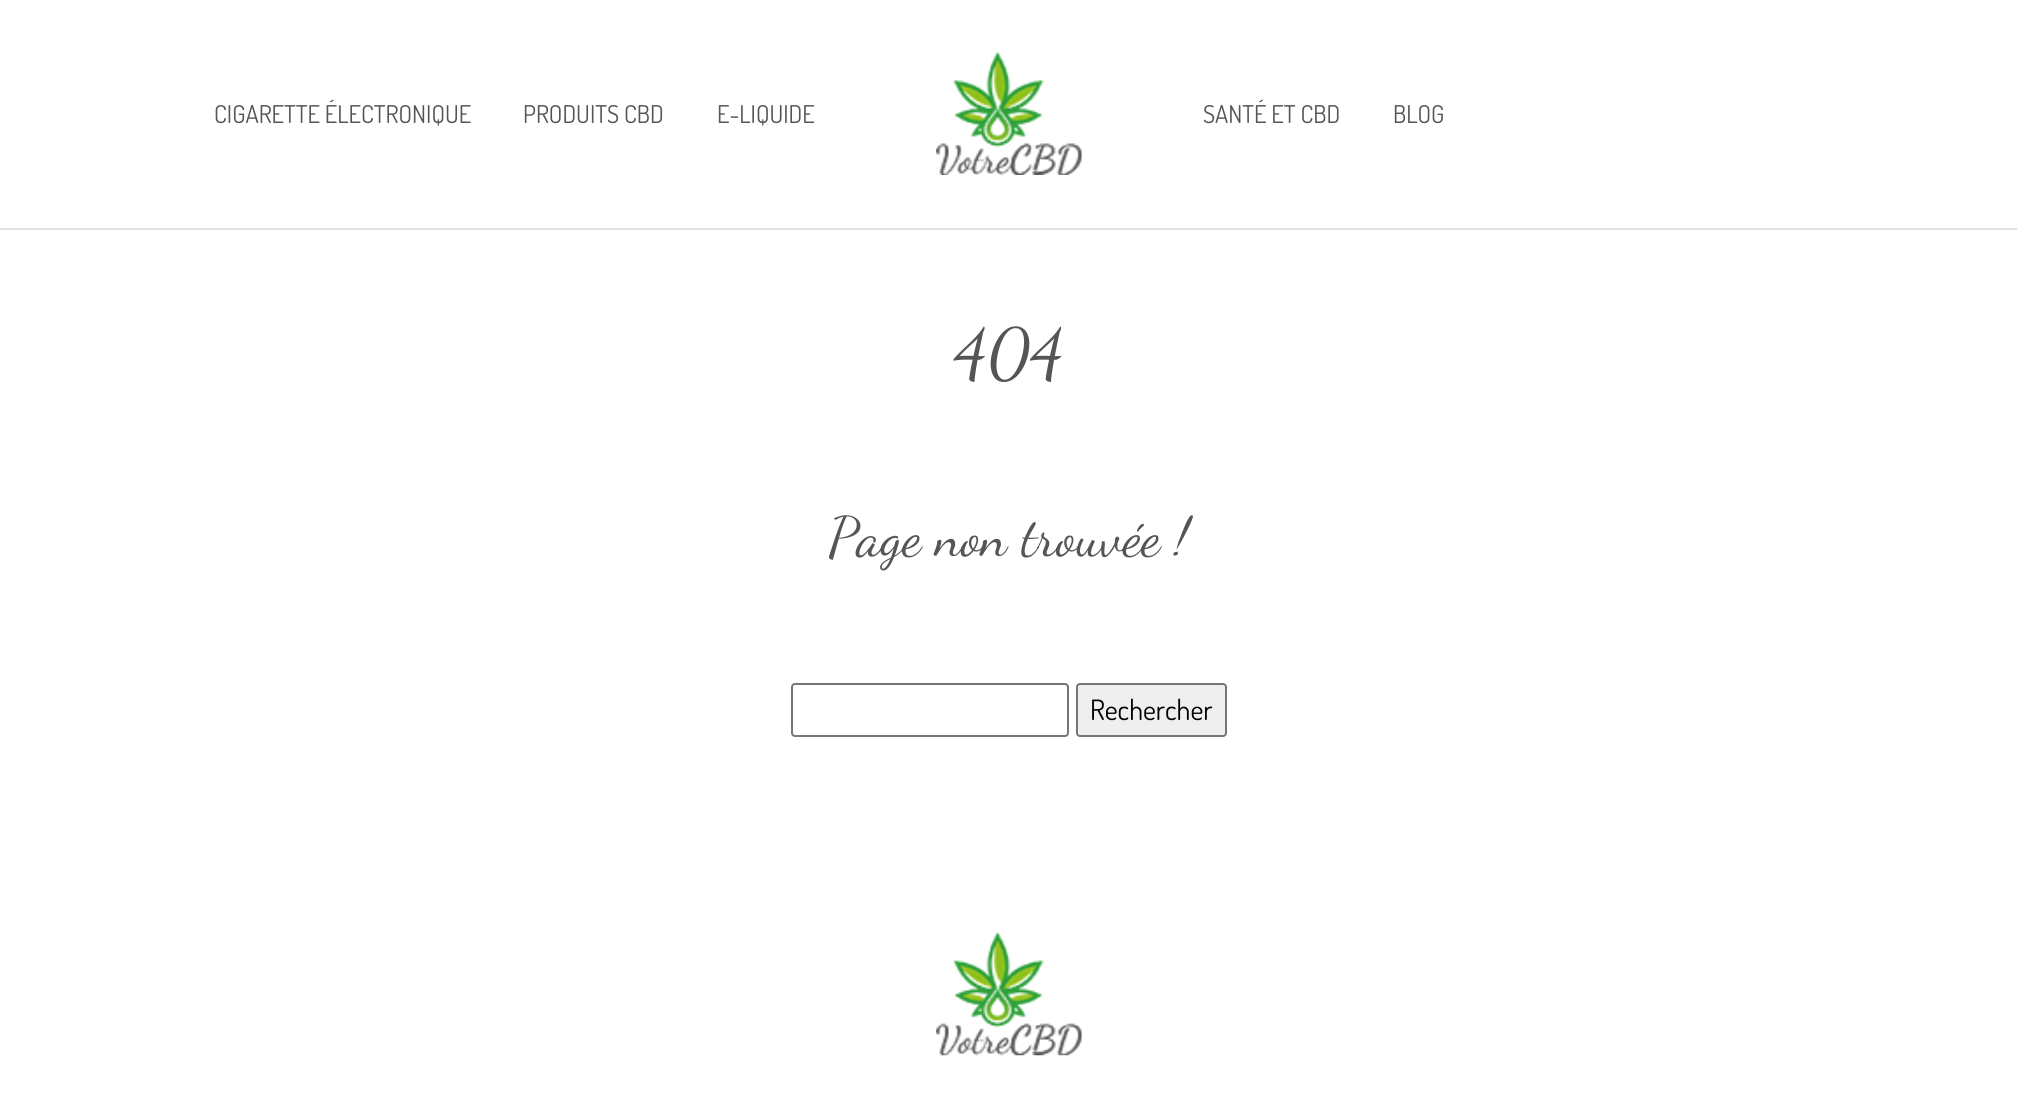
#include <cairo/cairo.h>
#include <math.h>
#include <stddef.h>

typedef struct { double x, y; const char *s; } line_t;
static cairo_t *cr;

static void rgb(unsigned color)
{
	cairo_set_source_rgb(cr, (color >> 16) / 255.0, (color >> 8 & 255) / 255.0, (color & 255) / 255.0);
}

static void rrect(double x, double y, double w, double h, double r)
{
	cairo_new_sub_path(cr);
	cairo_arc(cr, x + w - r, y + h - r, r, 0, M_PI / 2);
	cairo_arc(cr, x + r, y + h - r, r, M_PI / 2, M_PI);
	cairo_arc(cr, x + r, y + r, r, M_PI, 1.5 * M_PI);
	cairo_arc(cr, x + w - r, y + r, r, 1.5 * M_PI, 2 * M_PI);
	cairo_close_path(cr);
}

static void image(const char *path, double x, double y, double w, double h)
{
	cairo_surface_t *image = cairo_image_surface_create_from_png(path);
	cairo_save(cr);
	cairo_set_source_surface(cr, image, x, y);
	cairo_rectangle(cr, x, y, w, h);
	cairo_fill(cr);
	cairo_restore(cr);
	cairo_surface_destroy(image);
}

int main(void) {
	cairo_surface_t *surface = cairo_image_surface_create(CAIRO_FORMAT_RGB24, 2017, 1103);
	cr = cairo_create(surface);
	cairo_font_options_t *options = cairo_font_options_create();
	cairo_font_options_set_hint_metrics(options, CAIRO_HINT_METRICS_OFF);
	cairo_font_options_set_hint_style(options, CAIRO_HINT_STYLE_NONE);
	cairo_set_font_options(cr, options);
	cairo_set_miter_limit(cr, 4);
	rgb(0xffffff);
	cairo_paint(cr);
	rgb(0xe1e1e1);
	cairo_rectangle(cr, 0, 228, 2017, 2);
	cairo_fill(cr);
	image("img/1.png", 936, 52, 146, 123);
	rrect(792, 684, 276, 52, 3);
	rgb(0x767676);
	cairo_stroke(cr);
	rgb(0xefefef);
	rrect(1077, 684, 149, 52, 3);
	cairo_fill_preserve(cr);
	rgb(0x767676);
	cairo_stroke(cr);
	image("img/2.png", 936, 932, 146, 124);
	cairo_select_font_face(cr, "Dosis", CAIRO_FONT_SLANT_NORMAL, CAIRO_FONT_WEIGHT_NORMAL);
	cairo_set_font_size(cr, 24.5);
	rgb(0x555555);
	{
		static const line_t items[] = {
			{214, 123, "CIGARETTE ÉLECTRONIQUE"},
			{523, 123, "PRODUITS CBD"},
			{717, 123, "E-LIQUIDE"},
			{1203, 123, "SANTÉ ET CBD"},
			{1393, 123, "BLOG"},
		};
		for (size_t i = 0; i < sizeof items / sizeof *items; i++) {
			cairo_move_to(cr, items[i].x, items[i].y);
			cairo_show_text(cr, items[i].s);
		}
	}
	cairo_select_font_face(cr, "Dancing Script", CAIRO_FONT_SLANT_NORMAL, CAIRO_FONT_WEIGHT_NORMAL);
	cairo_set_font_size(cr, 69);
	cairo_move_to(cr, 954, 376);
	cairo_show_text(cr, "404");
	cairo_set_font_size(cr, 55.25);
	cairo_move_to(cr, 828, 555);
	cairo_show_text(cr, "Page non trouvée !");
	cairo_select_font_face(cr, "Dosis", CAIRO_FONT_SLANT_NORMAL, CAIRO_FONT_WEIGHT_NORMAL);
	cairo_set_font_size(cr, 28);
	rgb(0x000000);
	cairo_move_to(cr, 1090, 720);
	cairo_show_text(cr, "Rechercher");
	cairo_surface_write_to_png(surface, "page.png");
	cairo_font_options_destroy(options);
	cairo_destroy(cr);
	cairo_surface_destroy(surface);
	return 0;
}
